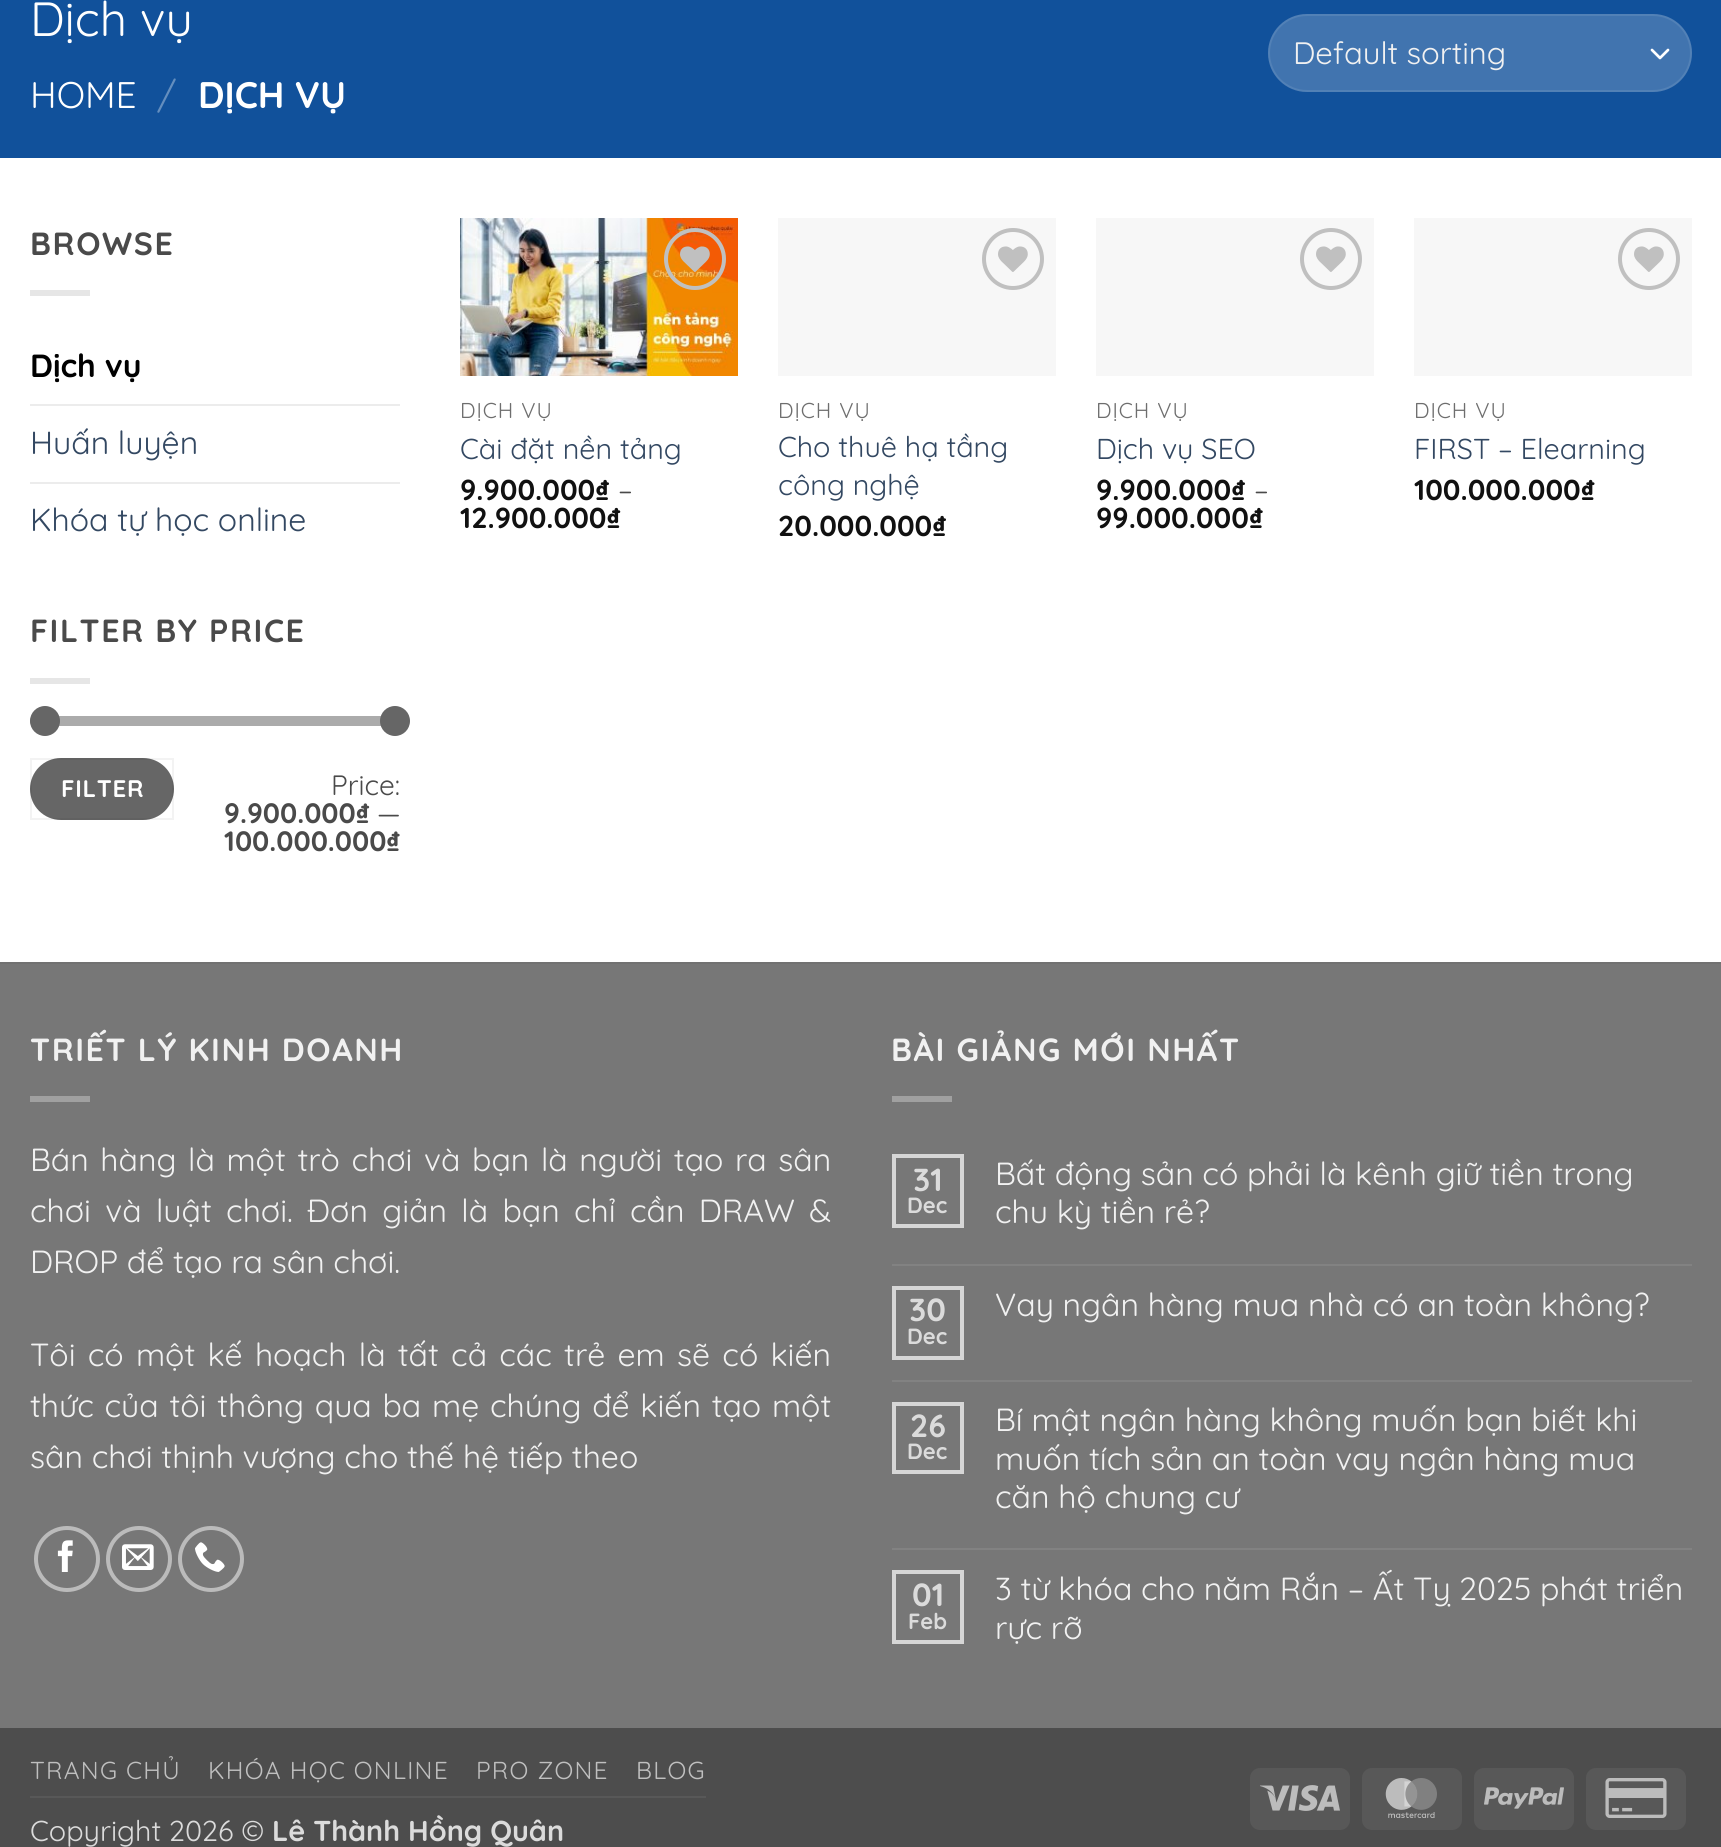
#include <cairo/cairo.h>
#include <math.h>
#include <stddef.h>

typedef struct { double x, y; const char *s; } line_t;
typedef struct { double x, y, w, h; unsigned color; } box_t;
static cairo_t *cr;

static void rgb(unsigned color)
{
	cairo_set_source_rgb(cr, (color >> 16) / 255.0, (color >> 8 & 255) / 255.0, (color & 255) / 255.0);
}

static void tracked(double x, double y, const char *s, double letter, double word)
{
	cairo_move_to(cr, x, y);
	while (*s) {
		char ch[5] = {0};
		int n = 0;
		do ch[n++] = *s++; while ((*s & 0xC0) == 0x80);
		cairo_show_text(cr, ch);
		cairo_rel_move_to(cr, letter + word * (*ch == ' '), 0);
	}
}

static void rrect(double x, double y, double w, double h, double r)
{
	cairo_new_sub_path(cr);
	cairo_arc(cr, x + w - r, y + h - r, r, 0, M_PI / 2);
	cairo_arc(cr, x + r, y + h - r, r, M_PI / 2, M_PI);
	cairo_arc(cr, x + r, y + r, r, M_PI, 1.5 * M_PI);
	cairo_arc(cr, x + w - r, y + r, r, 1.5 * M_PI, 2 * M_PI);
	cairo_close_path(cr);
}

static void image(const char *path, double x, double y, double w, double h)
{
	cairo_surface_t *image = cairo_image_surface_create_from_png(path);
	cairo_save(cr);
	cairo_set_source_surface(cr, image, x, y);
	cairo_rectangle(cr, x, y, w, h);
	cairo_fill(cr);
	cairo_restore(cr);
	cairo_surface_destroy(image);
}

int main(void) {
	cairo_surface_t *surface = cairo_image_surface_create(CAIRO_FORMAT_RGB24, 1721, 1847);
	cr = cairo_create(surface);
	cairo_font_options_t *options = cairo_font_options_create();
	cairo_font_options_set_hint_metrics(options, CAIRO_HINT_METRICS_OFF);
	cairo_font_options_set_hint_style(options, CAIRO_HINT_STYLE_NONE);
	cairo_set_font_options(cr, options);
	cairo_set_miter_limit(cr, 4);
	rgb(0xffffff);
	cairo_paint(cr);
	rgb(0x11519b);
	cairo_rectangle(cr, 0, 0, 1721, 158);
	cairo_fill(cr);
	rgb(0x4174af);
	rrect(1268, 14, 424, 78, 39);
	cairo_fill(cr);
	cairo_new_path(cr);
	cairo_move_to(cr, 1652, 50);
	cairo_line_to(cr, 1660, 58);
	cairo_line_to(cr, 1668, 50);
	rgb(0xffffff);
	cairo_set_line_width(cr, 2.7);
	cairo_set_line_cap(cr, CAIRO_LINE_CAP_ROUND);
	cairo_set_line_join(cr, CAIRO_LINE_JOIN_ROUND);
	cairo_stroke(cr);
	rrect(1269, 15, 422, 76, 38);
	cairo_set_source_rgba(cr, 1, 1, 1, 0.09);
	cairo_set_line_width(cr, 2);
	cairo_set_line_cap(cr, CAIRO_LINE_CAP_BUTT);
	cairo_set_line_join(cr, CAIRO_LINE_JOIN_MITER);
	cairo_stroke(cr);
	{
		static const box_t items[] = {
			{30, 290, 60, 6, 0xe6e6e6},
			{30, 404, 370, 2, 0xececec},
			{30, 482, 370, 2, 0xececec},
			{30, 678, 60, 6, 0xe6e6e6},
		};
		for (size_t i = 0; i < sizeof items / sizeof *items; i++) {
			rgb(items[i].color);
			cairo_rectangle(cr, items[i].x, items[i].y, items[i].w, items[i].h);
			cairo_fill(cr);
		}
	}
	rgb(0xf1f1f1);
	rrect(30, 716, 370, 10, 5);
	cairo_fill(cr);
	cairo_set_source_rgba(cr, 0.4, 0.4, 0.4, 0.5);
	rrect(30, 716, 370, 10, 5);
	cairo_fill(cr);
	rgb(0x666666);
	cairo_arc(cr, 45, 721, 15, 0, 2 * M_PI);
	cairo_fill(cr);
	cairo_arc(cr, 395, 721, 15, 0, 2 * M_PI);
	cairo_fill(cr);
	rrect(30, 758, 144, 62, 31);
	cairo_fill(cr);
	cairo_rectangle(cr, 31, 759, 142, 60);
	cairo_set_source_rgba(cr, 0, 0, 0, 0.05);
	cairo_stroke(cr);
	image("img/1.png", 460, 218, 278, 158);
	cairo_arc(cr, 695, 259, 29, 0, 2 * M_PI);
	rgb(0xc0c0c0);
	cairo_set_line_width(cr, 4);
	cairo_stroke(cr);
	image("img/2.png", 680, 246, 30, 26);
	rgb(0xf7f7f7);
	cairo_rectangle(cr, 778, 218, 278, 158);
	cairo_fill(cr);
	cairo_arc(cr, 1013, 259, 29, 0, 2 * M_PI);
	rgb(0xc0c0c0);
	cairo_stroke(cr);
	image("img/3.png", 998, 246, 30, 26);
	rgb(0xf7f7f7);
	cairo_rectangle(cr, 1096, 218, 278, 158);
	cairo_fill(cr);
	cairo_arc(cr, 1331, 259, 29, 0, 2 * M_PI);
	rgb(0xc0c0c0);
	cairo_stroke(cr);
	image("img/3.png", 1316, 246, 30, 26);
	rgb(0xf7f7f7);
	cairo_rectangle(cr, 1414, 218, 278, 158);
	cairo_fill(cr);
	cairo_arc(cr, 1649, 259, 29, 0, 2 * M_PI);
	rgb(0xc0c0c0);
	cairo_stroke(cr);
	image("img/3.png", 1634, 246, 30, 26);
	{
		static const box_t items[] = {
			{0, 964, 1721, 764, 0x777777},
			{0, 962, 1721, 2, 0x717171},
			{30, 1096, 60, 6, 0xa0a0a0},
		};
		for (size_t i = 0; i < sizeof items / sizeof *items; i++) {
			rgb(items[i].color);
			cairo_rectangle(cr, items[i].x, items[i].y, items[i].w, items[i].h);
			cairo_fill(cr);
		}
	}
	cairo_arc(cr, 67, 1559, 31, 0, 2 * M_PI);
	rgb(0xbbbbbb);
	cairo_stroke(cr);
	image("img/4.png", 57, 1540, 16, 32);
	cairo_arc(cr, 139, 1559, 31, 0, 2 * M_PI);
	cairo_stroke(cr);
	image("img/5.png", 122, 1544, 32, 26);
	cairo_arc(cr, 211, 1559, 31, 0, 2 * M_PI);
	cairo_stroke(cr);
	image("img/6.png", 195, 1542, 30, 30);
	rgb(0xa0a0a0);
	cairo_rectangle(cr, 892, 1096, 60, 6);
	cairo_fill(cr);
	cairo_rectangle(cr, 894, 1156, 68, 70);
	rgb(0xd6d6d6);
	cairo_stroke(cr);
	rgb(0x828282);
	cairo_rectangle(cr, 892, 1264, 800, 2);
	cairo_fill(cr);
	cairo_rectangle(cr, 894, 1288, 68, 70);
	rgb(0xd6d6d6);
	cairo_stroke(cr);
	rgb(0x828282);
	cairo_rectangle(cr, 892, 1380, 800, 2);
	cairo_fill(cr);
	cairo_rectangle(cr, 894, 1404, 68, 68);
	rgb(0xd6d6d6);
	cairo_stroke(cr);
	rgb(0x828282);
	cairo_rectangle(cr, 892, 1548, 800, 2);
	cairo_fill(cr);
	cairo_rectangle(cr, 894, 1572, 68, 70);
	rgb(0xd6d6d6);
	cairo_stroke(cr);
	rgb(0x4d4d4d);
	cairo_rectangle(cr, 0, 1728, 1721, 119);
	cairo_fill(cr);
	rgb(0x585858);
	cairo_rectangle(cr, 30, 1796, 676, 2);
	cairo_fill(cr);
	rrect(1250, 1768, 100, 62, 10);
	cairo_fill(cr);
	image("img/7.png", 1260, 1785, 80, 26);
	rrect(1362, 1768, 100, 62, 10);
	cairo_fill(cr);
	image("img/8.png", 1385, 1778, 52, 40);
	rrect(1474, 1768, 100, 62, 10);
	cairo_fill(cr);
	image("img/9.png", 1484, 1787, 80, 22);
	rrect(1586, 1768, 100, 62, 10);
	cairo_fill(cr);
	image("img/10.png", 1605, 1778, 62, 40);
	cairo_select_font_face(cr, "Quicksand", CAIRO_FONT_SLANT_NORMAL, CAIRO_FONT_WEIGHT_NORMAL);
	cairo_set_font_size(cr, 48);
	rgb(0xffffff);
	cairo_move_to(cr, 30, 36);
	cairo_show_text(cr, "Dịch vụ");
	cairo_set_font_size(cr, 37);
	cairo_move_to(cr, 30, 108);
	cairo_show_text(cr, "HOME");
	rgb(0x648ebe);
	cairo_move_to(cr, 157, 108);
	cairo_show_text(cr, "/");
	cairo_select_font_face(cr, "Quicksand", CAIRO_FONT_SLANT_NORMAL, CAIRO_FONT_WEIGHT_BOLD);
	rgb(0xffffff);
	cairo_move_to(cr, 198, 108);
	cairo_show_text(cr, "DỊCH VỤ");
	cairo_select_font_face(cr, "Quicksand", CAIRO_FONT_SLANT_NORMAL, CAIRO_FONT_WEIGHT_NORMAL);
	cairo_set_font_size(cr, 31);
	rgb(0xf1f1f1);
	cairo_move_to(cr, 1293, 64);
	cairo_show_text(cr, "Default sorting");
	cairo_select_font_face(cr, "Quicksand", CAIRO_FONT_SLANT_NORMAL, CAIRO_FONT_WEIGHT_BOLD);
	cairo_set_font_size(cr, 32);
	rgb(0x4a4a4a);
	tracked(30, 255, "BROWSE", 1.6, 0);
	rgb(0x000000);
	cairo_move_to(cr, 30, 377);
	cairo_show_text(cr, "Dịch vụ");
	cairo_select_font_face(cr, "Quicksand", CAIRO_FONT_SLANT_NORMAL, CAIRO_FONT_WEIGHT_NORMAL);
	rgb(0x334862);
	cairo_move_to(cr, 30, 454);
	cairo_show_text(cr, "Huấn luyện");
	cairo_move_to(cr, 30, 531);
	cairo_show_text(cr, "Khóa tự học online");
	cairo_select_font_face(cr, "Quicksand", CAIRO_FONT_SLANT_NORMAL, CAIRO_FONT_WEIGHT_BOLD);
	rgb(0x4a4a4a);
	tracked(30, 642, "FILTER BY PRICE", 1.6, 0);
	cairo_set_font_size(cr, 24);
	rgb(0xffffff);
	tracked(61, 797, "FILTER", 0.75, 0);
	cairo_select_font_face(cr, "Quicksand", CAIRO_FONT_SLANT_NORMAL, CAIRO_FONT_WEIGHT_NORMAL);
	cairo_set_font_size(cr, 28);
	rgb(0x4a4a4a);
	cairo_move_to(cr, 331, 795);
	cairo_show_text(cr, "Price:");
	cairo_select_font_face(cr, "Quicksand", CAIRO_FONT_SLANT_NORMAL, CAIRO_FONT_WEIGHT_BOLD);
	cairo_move_to(cr, 224, 823);
	cairo_show_text(cr, "9.900.000₫");
	cairo_select_font_face(cr, "Quicksand", CAIRO_FONT_SLANT_NORMAL, CAIRO_FONT_WEIGHT_NORMAL);
	cairo_move_to(cr, 377, 823);
	cairo_show_text(cr, "—");
	cairo_select_font_face(cr, "Quicksand", CAIRO_FONT_SLANT_NORMAL, CAIRO_FONT_WEIGHT_BOLD);
	cairo_move_to(cr, 224, 851);
	cairo_show_text(cr, "100.000.000₫");
	cairo_select_font_face(cr, "Quicksand", CAIRO_FONT_SLANT_NORMAL, CAIRO_FONT_WEIGHT_NORMAL);
	cairo_set_font_size(cr, 21.5);
	rgb(0x6e6e6e);
	tracked(460, 418, "DỊCH VỤ", 1, 0);
	cairo_set_font_size(cr, 28.75);
	rgb(0x334862);
	cairo_move_to(cr, 460, 459);
	cairo_show_text(cr, "Cài đặt nền tảng");
	cairo_select_font_face(cr, "Quicksand", CAIRO_FONT_SLANT_NORMAL, CAIRO_FONT_WEIGHT_BOLD);
	rgb(0x111111);
	cairo_move_to(cr, 460, 500);
	cairo_show_text(cr, "9.900.000₫");
	cairo_select_font_face(cr, "Quicksand", CAIRO_FONT_SLANT_NORMAL, CAIRO_FONT_WEIGHT_NORMAL);
	rgb(0x4a4a4a);
	cairo_move_to(cr, 618, 500);
	cairo_show_text(cr, "–");
	cairo_select_font_face(cr, "Quicksand", CAIRO_FONT_SLANT_NORMAL, CAIRO_FONT_WEIGHT_BOLD);
	rgb(0x111111);
	cairo_move_to(cr, 460, 528);
	cairo_show_text(cr, "12.900.000₫");
	cairo_select_font_face(cr, "Quicksand", CAIRO_FONT_SLANT_NORMAL, CAIRO_FONT_WEIGHT_NORMAL);
	cairo_set_font_size(cr, 21.5);
	rgb(0x6e6e6e);
	tracked(778, 418, "DỊCH VỤ", 1, 0);
	cairo_set_font_size(cr, 28.75);
	rgb(0x334862);
	cairo_move_to(cr, 778, 457);
	cairo_show_text(cr, "Cho thuê hạ tầng");
	cairo_move_to(cr, 778, 495);
	cairo_show_text(cr, "công nghệ");
	cairo_select_font_face(cr, "Quicksand", CAIRO_FONT_SLANT_NORMAL, CAIRO_FONT_WEIGHT_BOLD);
	rgb(0x111111);
	cairo_move_to(cr, 778, 536);
	cairo_show_text(cr, "20.000.000₫");
	cairo_select_font_face(cr, "Quicksand", CAIRO_FONT_SLANT_NORMAL, CAIRO_FONT_WEIGHT_NORMAL);
	cairo_set_font_size(cr, 21.5);
	rgb(0x6e6e6e);
	tracked(1096, 418, "DỊCH VỤ", 1, 0);
	cairo_set_font_size(cr, 28.75);
	rgb(0x334862);
	cairo_move_to(cr, 1096, 459);
	cairo_show_text(cr, "Dịch vụ SEO");
	cairo_select_font_face(cr, "Quicksand", CAIRO_FONT_SLANT_NORMAL, CAIRO_FONT_WEIGHT_BOLD);
	rgb(0x111111);
	cairo_move_to(cr, 1096, 500);
	cairo_show_text(cr, "9.900.000₫");
	cairo_select_font_face(cr, "Quicksand", CAIRO_FONT_SLANT_NORMAL, CAIRO_FONT_WEIGHT_NORMAL);
	rgb(0x4a4a4a);
	cairo_move_to(cr, 1254, 500);
	cairo_show_text(cr, "–");
	cairo_select_font_face(cr, "Quicksand", CAIRO_FONT_SLANT_NORMAL, CAIRO_FONT_WEIGHT_BOLD);
	rgb(0x111111);
	cairo_move_to(cr, 1096, 528);
	cairo_show_text(cr, "99.000.000₫");
	cairo_select_font_face(cr, "Quicksand", CAIRO_FONT_SLANT_NORMAL, CAIRO_FONT_WEIGHT_NORMAL);
	cairo_set_font_size(cr, 21.5);
	rgb(0x6e6e6e);
	tracked(1414, 418, "DỊCH VỤ", 1, 0);
	cairo_set_font_size(cr, 28.75);
	rgb(0x334862);
	cairo_move_to(cr, 1414, 459);
	cairo_show_text(cr, "FIRST – Elearning");
	cairo_select_font_face(cr, "Quicksand", CAIRO_FONT_SLANT_NORMAL, CAIRO_FONT_WEIGHT_BOLD);
	rgb(0x111111);
	cairo_move_to(cr, 1414, 500);
	cairo_show_text(cr, "100.000.000₫");
	cairo_set_font_size(cr, 32);
	rgb(0xf1f1f1);
	tracked(30, 1061, "TRIẾT LÝ KINH DOANH", 1.6, 0);
	cairo_select_font_face(cr, "Quicksand", CAIRO_FONT_SLANT_NORMAL, CAIRO_FONT_WEIGHT_NORMAL);
	tracked(30, 1171, "Bán hàng là một trò chơi và bạn là người tạo ra sân", 0, 2.9);
	tracked(30, 1222, "chơi và luật chơi. Đơn giản là bạn chỉ cần DRAW &", 0, 5.6);
	cairo_move_to(cr, 30, 1273);
	cairo_show_text(cr, "DROP để tạo ra sân chơi.");
	tracked(30, 1366, "Tôi có một kế hoạch là tất cả các trẻ em sẽ có kiến", 0, 3.5);
	tracked(30, 1417, "thức của tôi thông qua ba mẹ chúng để kiến tạo một", 0, 2);
	cairo_move_to(cr, 30, 1468);
	cairo_show_text(cr, "sân chơi thịnh vượng cho thế hệ tiếp theo");
	cairo_select_font_face(cr, "Quicksand", CAIRO_FONT_SLANT_NORMAL, CAIRO_FONT_WEIGHT_BOLD);
	tracked(891, 1061, "BÀI GIẢNG MỚI NHẤT", 1.6, 0);
	rgb(0xdbdbdb);
	cairo_move_to(cr, 913, 1191);
	cairo_show_text(cr, "31");
	cairo_set_font_size(cr, 22);
	cairo_move_to(cr, 907, 1213);
	cairo_show_text(cr, "Dec");
	cairo_select_font_face(cr, "Quicksand", CAIRO_FONT_SLANT_NORMAL, CAIRO_FONT_WEIGHT_NORMAL);
	cairo_set_font_size(cr, 32);
	rgb(0xf1f1f1);
	cairo_move_to(cr, 995, 1185);
	cairo_show_text(cr, "Bất động sản có phải là kênh giữ tiền trong");
	cairo_move_to(cr, 995, 1223);
	cairo_show_text(cr, "chu kỳ tiền rẻ?");
	cairo_select_font_face(cr, "Quicksand", CAIRO_FONT_SLANT_NORMAL, CAIRO_FONT_WEIGHT_BOLD);
	rgb(0xdbdbdb);
	cairo_move_to(cr, 909, 1321);
	cairo_show_text(cr, "30");
	cairo_set_font_size(cr, 22);
	cairo_move_to(cr, 907, 1344);
	cairo_show_text(cr, "Dec");
	cairo_select_font_face(cr, "Quicksand", CAIRO_FONT_SLANT_NORMAL, CAIRO_FONT_WEIGHT_NORMAL);
	cairo_set_font_size(cr, 32);
	rgb(0xf1f1f1);
	cairo_move_to(cr, 995, 1316);
	cairo_show_text(cr, "Vay ngân hàng mua nhà có an toàn không?");
	cairo_select_font_face(cr, "Quicksand", CAIRO_FONT_SLANT_NORMAL, CAIRO_FONT_WEIGHT_BOLD);
	rgb(0xdbdbdb);
	cairo_move_to(cr, 910, 1437);
	cairo_show_text(cr, "26");
	cairo_set_font_size(cr, 22);
	cairo_move_to(cr, 907, 1459);
	cairo_show_text(cr, "Dec");
	cairo_select_font_face(cr, "Quicksand", CAIRO_FONT_SLANT_NORMAL, CAIRO_FONT_WEIGHT_NORMAL);
	cairo_set_font_size(cr, 32);
	rgb(0xf1f1f1);
	{
		static const line_t items[] = {
			{995, 1431, "Bí mật ngân hàng không muốn bạn biết khi"},
			{995, 1470, "muốn tích sản an toàn vay ngân hàng mua"},
			{995, 1508, "căn hộ chung cư"},
		};
		for (size_t i = 0; i < sizeof items / sizeof *items; i++) {
			cairo_move_to(cr, items[i].x, items[i].y);
			cairo_show_text(cr, items[i].s);
		}
	}
	cairo_select_font_face(cr, "Quicksand", CAIRO_FONT_SLANT_NORMAL, CAIRO_FONT_WEIGHT_BOLD);
	rgb(0xdbdbdb);
	cairo_move_to(cr, 912, 1606);
	cairo_show_text(cr, "01");
	cairo_set_font_size(cr, 22);
	cairo_move_to(cr, 908, 1629);
	cairo_show_text(cr, "Feb");
	cairo_select_font_face(cr, "Quicksand", CAIRO_FONT_SLANT_NORMAL, CAIRO_FONT_WEIGHT_NORMAL);
	cairo_set_font_size(cr, 32);
	rgb(0xf1f1f1);
	cairo_move_to(cr, 995, 1600);
	cairo_show_text(cr, "3 từ khóa cho năm Rắn – Ất Tỵ 2025 phát triển");
	cairo_move_to(cr, 995, 1639);
	cairo_show_text(cr, "rực rỡ");
	cairo_set_font_size(cr, 24.5);
	rgb(0xbfbfbf);
	{
		static const line_t items[] = {
			{30, 1779, "TRANG CHỦ"},
			{208, 1779, "KHÓA HỌC ONLINE"},
			{476, 1779, "PRO ZONE"},
			{636, 1779, "BLOG"},
		};
		for (size_t i = 0; i < sizeof items / sizeof *items; i++) {
			tracked(items[i].x, items[i].y, items[i].s, 1.25, 0);
		}
	}
	cairo_set_font_size(cr, 28.75);
	rgb(0xdbdbdb);
	cairo_move_to(cr, 30, 1841);
	cairo_show_text(cr, "Copyright 2026 ©");
	cairo_select_font_face(cr, "Quicksand", CAIRO_FONT_SLANT_NORMAL, CAIRO_FONT_WEIGHT_BOLD);
	cairo_move_to(cr, 272, 1841);
	cairo_show_text(cr, "Lê Thành Hồng Quân");
	cairo_surface_write_to_png(surface, "page.png");
	cairo_font_options_destroy(options);
	cairo_destroy(cr);
	cairo_surface_destroy(surface);
	return 0;
}
